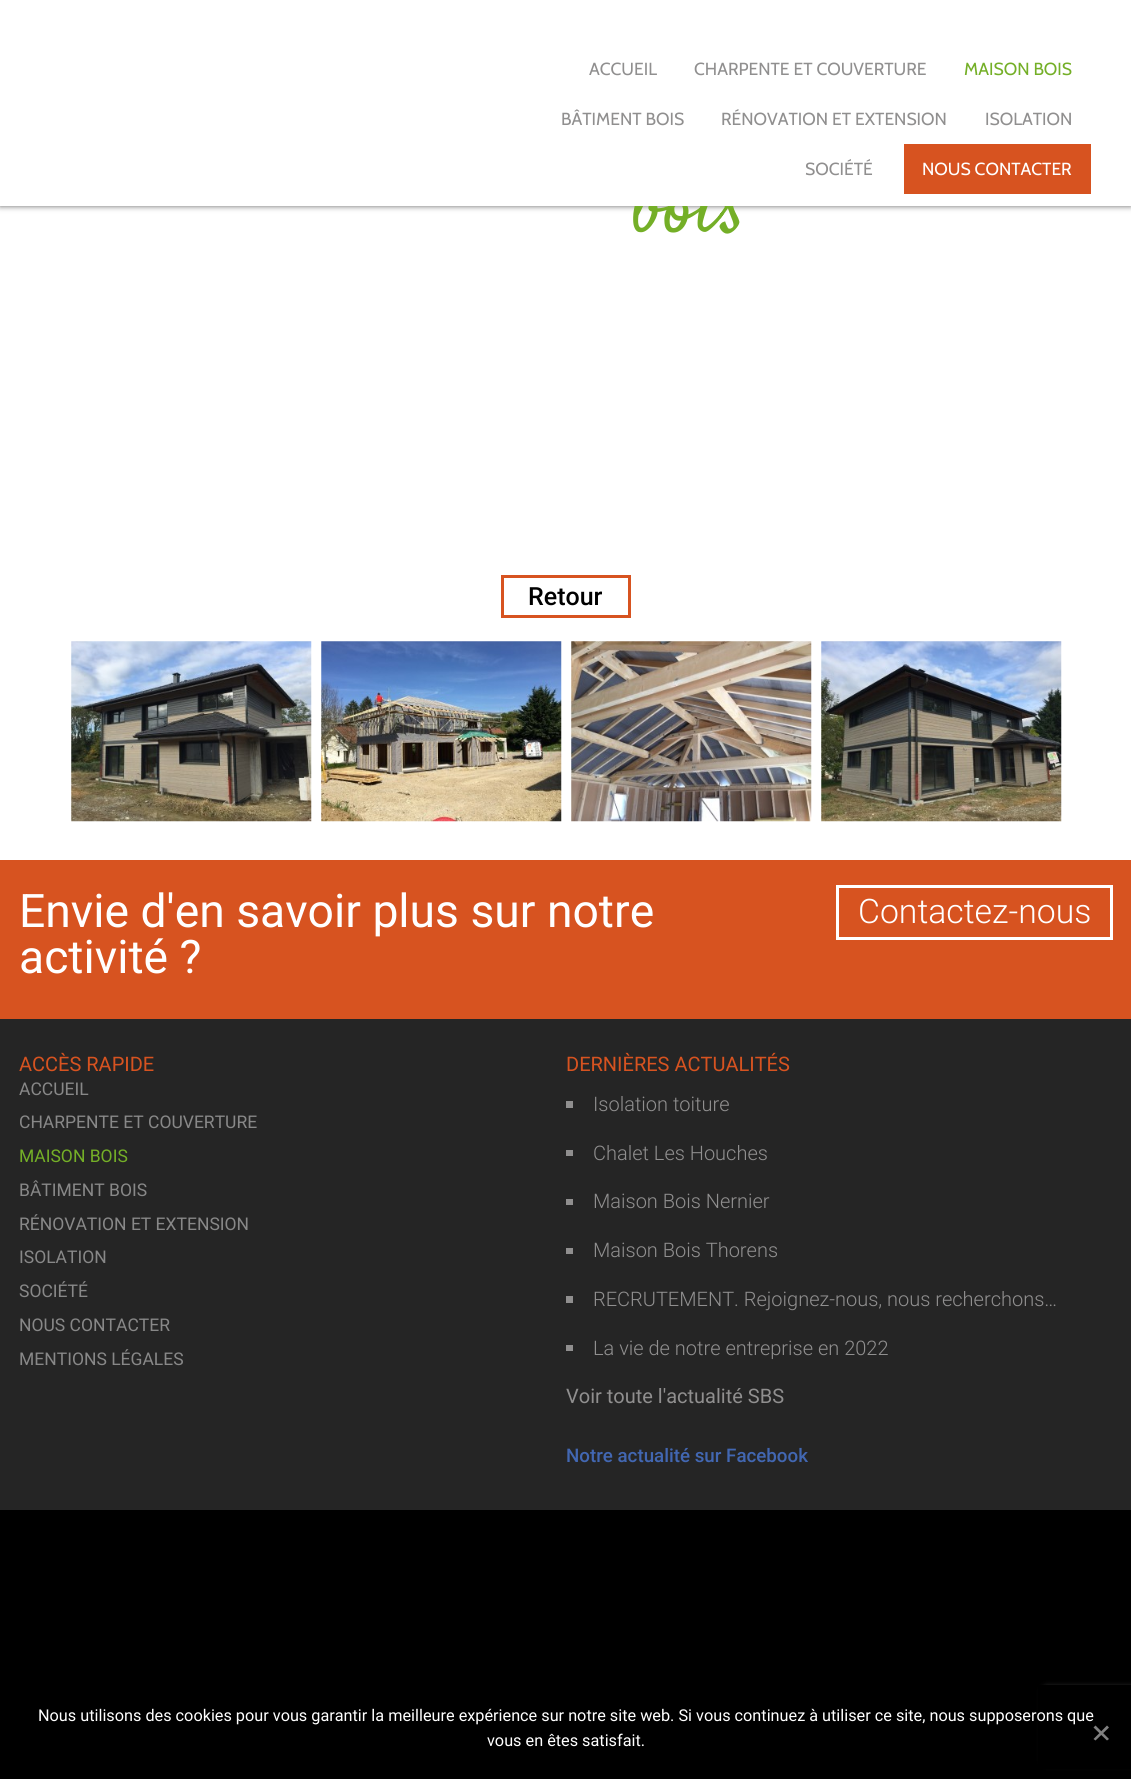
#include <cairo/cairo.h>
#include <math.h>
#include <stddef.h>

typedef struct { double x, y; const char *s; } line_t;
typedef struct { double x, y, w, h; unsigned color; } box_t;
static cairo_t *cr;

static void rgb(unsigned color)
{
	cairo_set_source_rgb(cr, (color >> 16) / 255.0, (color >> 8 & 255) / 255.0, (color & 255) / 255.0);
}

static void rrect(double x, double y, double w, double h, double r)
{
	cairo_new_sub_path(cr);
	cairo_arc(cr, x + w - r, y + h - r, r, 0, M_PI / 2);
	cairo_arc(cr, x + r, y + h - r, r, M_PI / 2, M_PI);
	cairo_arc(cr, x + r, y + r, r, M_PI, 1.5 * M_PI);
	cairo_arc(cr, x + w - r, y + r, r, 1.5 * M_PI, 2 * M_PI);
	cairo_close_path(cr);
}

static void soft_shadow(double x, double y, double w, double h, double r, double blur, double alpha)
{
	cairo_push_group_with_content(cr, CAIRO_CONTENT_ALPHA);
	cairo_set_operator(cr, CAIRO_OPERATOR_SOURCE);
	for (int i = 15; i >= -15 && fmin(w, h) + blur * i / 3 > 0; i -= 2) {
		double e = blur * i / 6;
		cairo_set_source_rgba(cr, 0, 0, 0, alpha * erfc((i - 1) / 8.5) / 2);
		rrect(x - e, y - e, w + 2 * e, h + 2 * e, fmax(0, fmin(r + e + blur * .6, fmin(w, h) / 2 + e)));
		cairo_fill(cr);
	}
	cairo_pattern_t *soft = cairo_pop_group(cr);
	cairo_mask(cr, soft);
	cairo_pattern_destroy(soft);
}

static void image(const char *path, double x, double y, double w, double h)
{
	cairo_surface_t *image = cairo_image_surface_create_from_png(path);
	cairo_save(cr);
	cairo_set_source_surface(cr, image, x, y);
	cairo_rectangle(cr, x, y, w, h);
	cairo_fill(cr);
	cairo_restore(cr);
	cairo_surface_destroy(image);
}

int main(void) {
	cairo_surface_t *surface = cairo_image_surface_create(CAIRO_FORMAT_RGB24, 1131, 1779);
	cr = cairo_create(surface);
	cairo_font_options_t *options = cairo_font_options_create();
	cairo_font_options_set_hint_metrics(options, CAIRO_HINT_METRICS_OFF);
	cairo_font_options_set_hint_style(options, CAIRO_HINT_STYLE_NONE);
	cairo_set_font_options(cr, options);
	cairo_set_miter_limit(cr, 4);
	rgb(0x000000);
	cairo_paint(cr);
	rgb(0xffffff);
	cairo_rectangle(cr, 0, 206, 1131, 654);
	cairo_fill(cr);
	rgb(0x656565);
	soft_shadow(0, 0, 1131, 206, 0, 3, 1);
	cairo_rectangle(cr, 502.5, 576.5, 127, 40);
	rgb(0xd75320);
	cairo_set_line_width(cr, 3);
	cairo_stroke(cr);
	image("img/1.png", 71, 641, 241, 181);
	image("img/2.png", 321, 641, 241, 181);
	image("img/3.png", 571, 641, 241, 181);
	image("img/4.png", 821, 641, 241, 181);
	cairo_rectangle(cr, 0, 860, 1131, 159);
	cairo_fill(cr);
	cairo_rectangle(cr, 837.5, 886.5, 274, 52);
	rgb(0xffffff);
	cairo_stroke(cr);
	{
		static const box_t items[] = {
			{0, 1019, 1131, 491, 0x252525},
			{566, 1101, 7, 7, 0x908f8f},
			{566, 1150, 7, 6, 0x908f8f},
			{566, 1199, 7, 6, 0x908f8f},
			{566, 1248, 7, 6, 0x908f8f},
			{566, 1296, 7, 7, 0x908f8f},
			{566, 1345, 7, 6, 0x908f8f},
		};
		for (size_t i = 0; i < sizeof items / sizeof *items; i++) {
			rgb(items[i].color);
			cairo_rectangle(cr, items[i].x, items[i].y, items[i].w, items[i].h);
			cairo_fill(cr);
		}
	}
	rgb(0x808080);
	soft_shadow(1044, 1688, 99, 75, 2.5, 3, 1);
	rgb(0x000000);
	cairo_rectangle(cr, 1038, 1685, 93, 84);
	cairo_fill(cr);
	rgb(0x808080);
	cairo_new_path(cr);
	cairo_move_to(cr, 1107, 1725.5);
	cairo_line_to(cr, 1109, 1727.5);
	cairo_line_to(cr, 1095.5, 1740.5);
	cairo_line_to(cr, 1093.5, 1739);
	cairo_close_path(cr);
	cairo_fill(cr);
	cairo_new_path(cr);
	cairo_move_to(cr, 1093.5, 1727.5);
	cairo_line_to(cr, 1095.5, 1725.5);
	cairo_line_to(cr, 1109, 1739);
	cairo_line_to(cr, 1107, 1740.5);
	cairo_close_path(cr);
	cairo_fill(cr);
	cairo_select_font_face(cr, "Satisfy", CAIRO_FONT_SLANT_NORMAL, CAIRO_FONT_WEIGHT_NORMAL);
	cairo_set_font_size(cr, 79);
	rgb(0x74af27);
	cairo_move_to(cr, 632, 231);
	cairo_show_text(cr, "bois");
	rgb(0xffffff);
	cairo_rectangle(cr, 0, 0, 1131, 206);
	cairo_fill(cr);
	rgb(0xd75320);
	cairo_rectangle(cr, 904, 144, 187, 50);
	cairo_fill(cr);
	cairo_select_font_face(cr, "Cabin", CAIRO_FONT_SLANT_NORMAL, CAIRO_FONT_WEIGHT_NORMAL);
	cairo_set_font_size(cr, 17.5);
	rgb(0xffffff);
	cairo_move_to(cr, 922, 175);
	cairo_show_text(cr, "NOUS CONTACTER");
	rgb(0x908f8f);
	{
		static const line_t items[] = {
			{805, 175, "SOCIÉTÉ"},
			{985, 125, "ISOLATION"},
			{721, 125, "RÉNOVATION ET EXTENSION"},
			{561, 125, "BÂTIMENT BOIS"},
		};
		for (size_t i = 0; i < sizeof items / sizeof *items; i++) {
			cairo_move_to(cr, items[i].x, items[i].y);
			cairo_show_text(cr, items[i].s);
		}
	}
	rgb(0x74af27);
	cairo_move_to(cr, 964, 75);
	cairo_show_text(cr, "MAISON BOIS");
	rgb(0x908f8f);
	cairo_move_to(cr, 694, 75);
	cairo_show_text(cr, "CHARPENTE ET COUVERTURE");
	cairo_move_to(cr, 589, 75);
	cairo_show_text(cr, "ACCUEIL");
	cairo_select_font_face(cr, "Roboto Medium", CAIRO_FONT_SLANT_NORMAL, CAIRO_FONT_WEIGHT_NORMAL);
	cairo_set_font_size(cr, 25);
	rgb(0x000000);
	cairo_move_to(cr, 528, 605);
	cairo_show_text(cr, "Retour");
	cairo_select_font_face(cr, "Roboto", CAIRO_FONT_SLANT_NORMAL, CAIRO_FONT_WEIGHT_NORMAL);
	cairo_set_font_size(cr, 46.25);
	rgb(0xffffff);
	cairo_move_to(cr, 19, 927);
	cairo_show_text(cr, "Envie d'en savoir plus sur notre");
	cairo_move_to(cr, 19, 973);
	cairo_show_text(cr, "activité ?");
	cairo_select_font_face(cr, "Roboto Light", CAIRO_FONT_SLANT_NORMAL, CAIRO_FONT_WEIGHT_NORMAL);
	cairo_set_font_size(cr, 33.75);
	cairo_move_to(cr, 858, 923);
	cairo_show_text(cr, "Contactez-nous");
	cairo_select_font_face(cr, "Roboto", CAIRO_FONT_SLANT_NORMAL, CAIRO_FONT_WEIGHT_NORMAL);
	cairo_set_font_size(cr, 20);
	rgb(0xd75320);
	cairo_move_to(cr, 19, 1071);
	cairo_show_text(cr, "ACCÈS RAPIDE");
	cairo_set_font_size(cr, 17.5);
	rgb(0x888888);
	cairo_move_to(cr, 19, 1095);
	cairo_show_text(cr, "ACCUEIL");
	cairo_move_to(cr, 19, 1128);
	cairo_show_text(cr, "CHARPENTE ET COUVERTURE");
	rgb(0x74af27);
	cairo_move_to(cr, 19, 1162);
	cairo_show_text(cr, "MAISON BOIS");
	rgb(0x888888);
	{
		static const line_t items[] = {
			{19, 1196, "BÂTIMENT BOIS"},
			{19, 1230, "RÉNOVATION ET EXTENSION"},
			{19, 1263, "ISOLATION"},
			{19, 1297, "SOCIÉTÉ"},
			{19, 1331, "NOUS CONTACTER"},
			{19, 1365, "MENTIONS LÉGALES"},
		};
		for (size_t i = 0; i < sizeof items / sizeof *items; i++) {
			cairo_move_to(cr, items[i].x, items[i].y);
			cairo_show_text(cr, items[i].s);
		}
	}
	cairo_set_font_size(cr, 20);
	rgb(0xd75320);
	cairo_move_to(cr, 566, 1071);
	cairo_show_text(cr, "DERNIÈRES ACTUALITÉS");
	cairo_select_font_face(cr, "Roboto Light", CAIRO_FONT_SLANT_NORMAL, CAIRO_FONT_WEIGHT_NORMAL);
	rgb(0x908f8f);
	{
		static const line_t items[] = {
			{593, 1111, "Isolation toiture"},
			{593, 1160, "Chalet Les Houches"},
			{593, 1208, "Maison Bois Nernier"},
			{593, 1257, "Maison Bois Thorens"},
			{593, 1306, "RECRUTEMENT. Rejoignez-nous, nous recherchons…"},
			{593, 1355, "La vie de notre entreprise en 2022"},
		};
		for (size_t i = 0; i < sizeof items / sizeof *items; i++) {
			cairo_move_to(cr, items[i].x, items[i].y);
			cairo_show_text(cr, items[i].s);
		}
	}
	cairo_select_font_face(cr, "Roboto", CAIRO_FONT_SLANT_NORMAL, CAIRO_FONT_WEIGHT_NORMAL);
	cairo_move_to(cr, 566, 1403);
	cairo_show_text(cr, "Voir toute l'actualité SBS");
	cairo_select_font_face(cr, "Roboto Medium", CAIRO_FONT_SLANT_NORMAL, CAIRO_FONT_WEIGHT_NORMAL);
	cairo_set_font_size(cr, 18.75);
	rgb(0x4267b2);
	cairo_move_to(cr, 566, 1462);
	cairo_show_text(cr, "Notre actualité sur Facebook");
	cairo_select_font_face(cr, "Roboto", CAIRO_FONT_SLANT_NORMAL, CAIRO_FONT_WEIGHT_NORMAL);
	cairo_set_font_size(cr, 16.25);
	rgb(0xffffff);
	cairo_move_to(cr, 38, 1721);
	cairo_show_text(cr, "Nous utilisons des cookies pour vous garantir la meilleure expérience sur notre site web. Si vous continuez à utiliser ce site, nous supposerons que");
	cairo_move_to(cr, 487, 1746);
	cairo_show_text(cr, "vous en êtes satisfait.");
	cairo_surface_write_to_png(surface, "page.png");
	cairo_font_options_destroy(options);
	cairo_destroy(cr);
	cairo_surface_destroy(surface);
	return 0;
}
